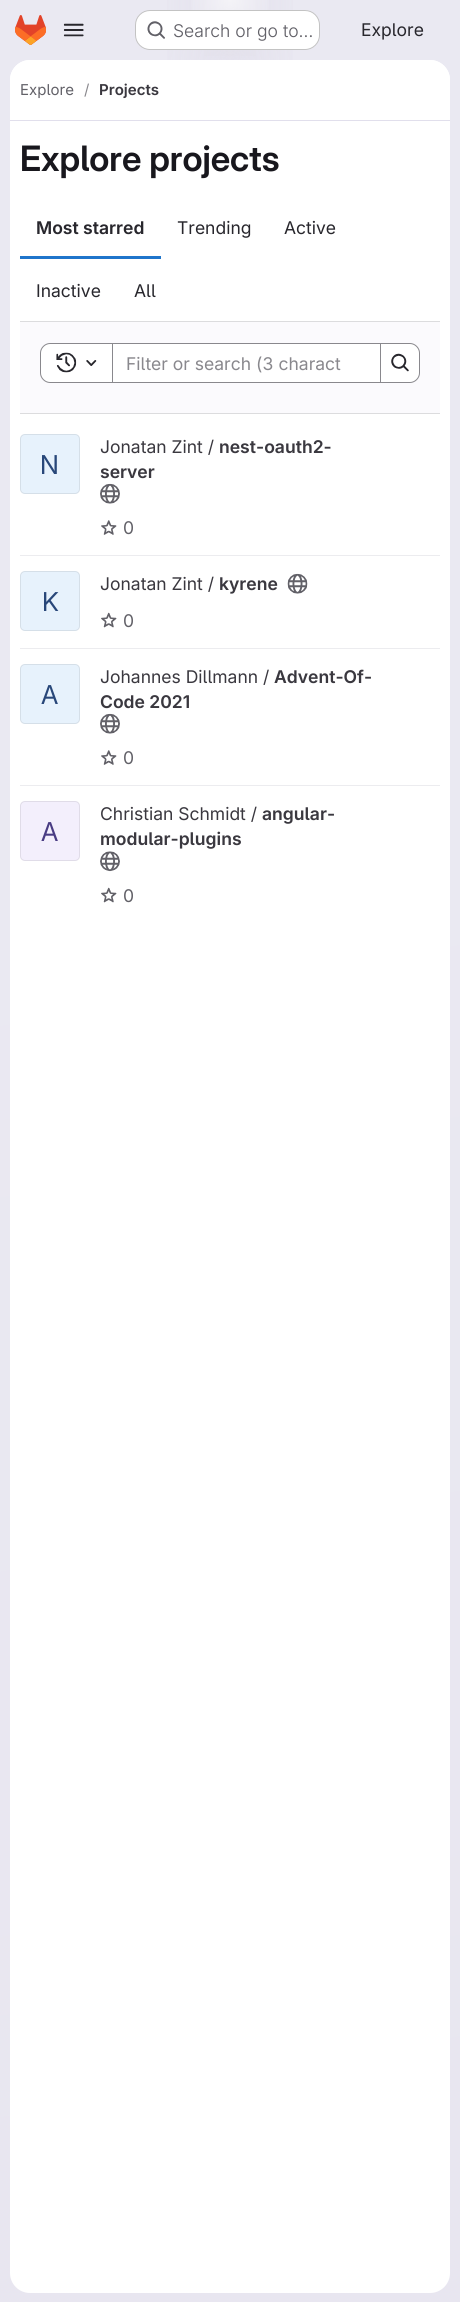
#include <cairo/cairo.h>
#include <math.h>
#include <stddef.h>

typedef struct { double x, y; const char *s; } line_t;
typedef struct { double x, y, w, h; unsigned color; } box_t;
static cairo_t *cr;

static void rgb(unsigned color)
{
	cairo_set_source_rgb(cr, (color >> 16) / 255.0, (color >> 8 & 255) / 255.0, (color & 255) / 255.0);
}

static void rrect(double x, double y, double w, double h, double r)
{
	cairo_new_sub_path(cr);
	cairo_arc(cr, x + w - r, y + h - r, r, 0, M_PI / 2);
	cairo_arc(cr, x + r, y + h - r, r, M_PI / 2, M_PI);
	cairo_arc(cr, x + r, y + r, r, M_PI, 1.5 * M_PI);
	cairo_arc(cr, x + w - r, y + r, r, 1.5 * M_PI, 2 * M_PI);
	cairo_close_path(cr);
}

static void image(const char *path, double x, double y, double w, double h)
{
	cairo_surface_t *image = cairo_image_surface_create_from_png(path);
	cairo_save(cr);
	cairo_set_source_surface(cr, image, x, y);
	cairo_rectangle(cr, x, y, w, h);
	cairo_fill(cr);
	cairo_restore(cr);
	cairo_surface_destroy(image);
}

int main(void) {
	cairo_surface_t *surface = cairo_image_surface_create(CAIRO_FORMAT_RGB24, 460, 2302);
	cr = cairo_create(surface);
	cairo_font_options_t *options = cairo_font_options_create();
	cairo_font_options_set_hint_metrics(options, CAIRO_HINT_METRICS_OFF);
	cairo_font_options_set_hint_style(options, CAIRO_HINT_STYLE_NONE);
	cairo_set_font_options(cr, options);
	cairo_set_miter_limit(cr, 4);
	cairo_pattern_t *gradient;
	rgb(0xffffff);
	cairo_paint(cr);
	gradient = cairo_pattern_create_linear(434, 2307, 26, -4.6);
	cairo_pattern_add_color_stop_rgba(gradient, 0, 0.91, 0.902, 0.941, 1);
	cairo_pattern_add_color_stop_rgba(gradient, 0.7, 0.918, 0.914, 0.949, 1);
	cairo_set_source(cr, gradient);
	cairo_pattern_destroy(gradient);
	cairo_rectangle(cr, 0, 0, 460, 2302);
	cairo_fill(cr);
	gradient = cairo_pattern_create_radial(0, 0, 0, 0, 0, 1);
	cairo_pattern_set_matrix(gradient, &(cairo_matrix_t){1.0 / 230, 0, 0, 1.0 / 2303, -1.0 * 230 / 230, -1.0 * 0 / 2303});
	cairo_pattern_add_color_stop_rgba(gradient, 0, 0.894, 0.886, 0.929, 1);
	cairo_pattern_add_color_stop_rgba(gradient, 0.38, 0.894, 0.886, 0.929, 0);
	cairo_set_source(cr, gradient);
	cairo_pattern_destroy(gradient);
	cairo_rectangle(cr, 167, 0, 126, 60);
	cairo_fill(cr);
	gradient = cairo_pattern_create_radial(0, 0, 0, 0, 0, 1);
	cairo_pattern_set_matrix(gradient, &(cairo_matrix_t){1.0 / 230, 0, 0, 1.0 / 2303, -1.0 * 230 / 230, -1.0 * 0 / 2303});
	cairo_pattern_add_color_stop_rgba(gradient, 0, 0.894, 0.886, 0.925, 1);
	cairo_pattern_add_color_stop_rgba(gradient, 0.27, 0.894, 0.886, 0.925, 0);
	cairo_set_source(cr, gradient);
	cairo_pattern_destroy(gradient);
	cairo_rectangle(cr, 204, 13, 52, 43);
	cairo_fill(cr);
	gradient = cairo_pattern_create_radial(230, 0, 0, 230, 0, 2314);
	cairo_pattern_add_color_stop_rgba(gradient, 0, 1, 1, 1, 0.6);
	cairo_pattern_add_color_stop_rgba(gradient, 0.02, 1, 1, 1, 0);
	cairo_set_source(cr, gradient);
	cairo_pattern_destroy(gradient);
	cairo_rectangle(cr, 191, 0, 78, 10);
	cairo_fill(cr);
	image("img/1.png", 15, 15, 31, 30);
	image("img/2.png", 63, 23, 21, 14);
	rgb(0xffffff);
	rrect(135, 10, 185, 40, 15);
	cairo_fill(cr);
	rrect(135.5, 10.5, 184, 39, 14.5);
	cairo_set_source_rgba(cr, 0.02, 0.02, 0.024, 0.24);
	cairo_set_line_width(cr, 1);
	cairo_stroke(cr);
	image("img/3.png", 147, 21, 18, 18);
	rgb(0xffffff);
	rrect(10, 60, 440, 2233, 20);
	cairo_fill(cr);
	cairo_new_path(cr);
	cairo_move_to(cr, 30, 60);
	cairo_line_to(cr, 430, 60);
	cairo_curve_to(cr, 441, 60, 450, 69, 450, 80);
	cairo_line_to(cr, 450, 121);
	cairo_line_to(cr, 10, 121);
	cairo_line_to(cr, 10, 80);
	cairo_curve_to(cr, 10, 69, 19, 60, 30, 60);
	cairo_close_path(cr);
	cairo_fill(cr);
	{
		static const box_t items[] = {
			{10, 120, 440, 1, 0xe1dfec},
			{20, 256, 141, 3, 0x1f75cb},
			{20, 322, 420, 91, 0xfbfafd},
			{20, 321, 420, 1, 0xdcdcde},
			{20, 413, 420, 1, 0xdcdcde},
			{113, 344, 267, 38, 0xffffff},
		};
		for (size_t i = 0; i < sizeof items / sizeof *items; i++) {
			rgb(items[i].color);
			cairo_rectangle(cr, items[i].x, items[i].y, items[i].w, items[i].h);
			cairo_fill(cr);
		}
	}
	cairo_rectangle(cr, 111.5, 343.5, 269, 39);
	rgb(0x89888d);
	cairo_stroke(cr);
	rgb(0xffffff);
	cairo_new_path(cr);
	cairo_move_to(cr, 50, 343.5);
	cairo_line_to(cr, 112.5, 343.5);
	cairo_line_to(cr, 112.5, 382.5);
	cairo_line_to(cr, 50, 382.5);
	cairo_curve_to(cr, 45, 382.5, 40.5, 378, 40.5, 373);
	cairo_line_to(cr, 40.5, 353);
	cairo_curve_to(cr, 40.5, 348, 45, 343.5, 50, 343.5);
	cairo_close_path(cr);
	cairo_fill_preserve(cr);
	rgb(0x89888d);
	cairo_stroke(cr);
	image("img/4.png", 56, 352, 21, 21);
	image("img/5.png", 86, 360, 11, 6);
	rgb(0xffffff);
	cairo_new_path(cr);
	cairo_move_to(cr, 380.5, 343.5);
	cairo_line_to(cr, 410, 343.5);
	cairo_curve_to(cr, 415, 343.5, 419.5, 348, 419.5, 353);
	cairo_line_to(cr, 419.5, 373);
	cairo_curve_to(cr, 419.5, 378, 415, 382.5, 410, 382.5);
	cairo_line_to(cr, 380.5, 382.5);
	cairo_close_path(cr);
	cairo_fill_preserve(cr);
	rgb(0x89888d);
	cairo_stroke(cr);
	image("img/6.png", 391, 353, 18, 19);
	rgb(0xececef);
	cairo_rectangle(cr, 20, 555, 420, 1);
	cairo_fill(cr);
	rgb(0xe7f2fc);
	rrect(20, 434, 60, 60, 5);
	cairo_fill(cr);
	rrect(20.5, 434.5, 59, 59, 4.5);
	cairo_set_source_rgba(cr, 0.02, 0.02, 0.024, 0.08);
	cairo_stroke(cr);
	image("img/7.png", 100, 483, 20, 21);
	image("img/8.png", 101, 520, 16, 15);
	rgb(0xececef);
	cairo_rectangle(cr, 20, 648, 420, 1);
	cairo_fill(cr);
	rgb(0xe7f2fc);
	rrect(20, 571, 60, 60, 5);
	cairo_fill(cr);
	rrect(20.5, 571.5, 59, 59, 4.5);
	cairo_set_source_rgba(cr, 0.02, 0.02, 0.024, 0.08);
	cairo_stroke(cr);
	image("img/9.png", 287, 573, 21, 21);
	image("img/10.png", 101, 612, 16, 16);
	rgb(0xececef);
	cairo_rectangle(cr, 20, 785, 420, 1);
	cairo_fill(cr);
	rgb(0xe7f2fc);
	rrect(20, 664, 60, 60, 5);
	cairo_fill(cr);
	rrect(20.5, 664.5, 59, 59, 4.5);
	cairo_set_source_rgba(cr, 0.02, 0.02, 0.024, 0.08);
	cairo_stroke(cr);
	image("img/7.png", 100, 713, 20, 21);
	image("img/11.png", 101, 750, 16, 15);
	rgb(0xf3effc);
	rrect(20, 801, 60, 60, 5);
	cairo_fill(cr);
	rrect(20.5, 801.5, 59, 59, 4.5);
	cairo_set_source_rgba(cr, 0.02, 0.02, 0.024, 0.08);
	cairo_stroke(cr);
	image("img/12.png", 100, 851, 20, 21);
	image("img/10.png", 101, 887, 16, 16);
	cairo_select_font_face(cr, "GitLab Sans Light", CAIRO_FONT_SLANT_NORMAL, CAIRO_FONT_WEIGHT_NORMAL);
	cairo_set_font_size(cr, 17.5);
	rgb(0x626168);
	cairo_move_to(cr, 173, 37);
	cairo_show_text(cr, "Search or go to…");
	cairo_select_font_face(cr, "GitLab Sans", CAIRO_FONT_SLANT_NORMAL, CAIRO_FONT_WEIGHT_NORMAL);
	rgb(0x28272d);
	cairo_move_to(cr, 361, 36);
	cairo_show_text(cr, "Explore");
	cairo_set_font_size(cr, 15);
	rgb(0x626168);
	cairo_move_to(cr, 20, 95);
	cairo_show_text(cr, "Explore");
	rgb(0x89888d);
	cairo_move_to(cr, 84, 95);
	cairo_show_text(cr, "/");
	cairo_select_font_face(cr, "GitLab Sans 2 SemiBold", CAIRO_FONT_SLANT_NORMAL, CAIRO_FONT_WEIGHT_NORMAL);
	rgb(0x3a383f);
	cairo_move_to(cr, 99, 95);
	cairo_show_text(cr, "Projects");
	cairo_select_font_face(cr, "GitLab Sans SemiBold", CAIRO_FONT_SLANT_NORMAL, CAIRO_FONT_WEIGHT_NORMAL);
	cairo_set_font_size(cr, 35);
	rgb(0x18171d);
	cairo_move_to(cr, 20, 171);
	cairo_show_text(cr, "Explore projects");
	cairo_select_font_face(cr, "GitLab Sans 2 SemiBold", CAIRO_FONT_SLANT_NORMAL, CAIRO_FONT_WEIGHT_NORMAL);
	cairo_set_font_size(cr, 17.5);
	rgb(0x28272d);
	cairo_move_to(cr, 36, 234);
	cairo_show_text(cr, "Most starred");
	cairo_select_font_face(cr, "GitLab Sans", CAIRO_FONT_SLANT_NORMAL, CAIRO_FONT_WEIGHT_NORMAL);
	{
		static const line_t items[] = {
			{177, 234, "Trending"},
			{284, 234, "Active"},
			{36, 297, "Inactive"},
			{134, 297, "All"},
		};
		for (size_t i = 0; i < sizeof items / sizeof *items; i++) {
			cairo_move_to(cr, items[i].x, items[i].y);
			cairo_show_text(cr, items[i].s);
		}
	}
	rgb(0x89888d);
	cairo_move_to(cr, 126, 370);
	cairo_show_text(cr, "Filter or search (3 charact");
	cairo_select_font_face(cr, "GitLab Sans 2", CAIRO_FONT_SLANT_NORMAL, CAIRO_FONT_WEIGHT_NORMAL);
	cairo_set_font_size(cr, 26);
	rgb(0x284779);
	cairo_move_to(cr, 40, 474);
	cairo_show_text(cr, "N");
	cairo_select_font_face(cr, "GitLab Sans", CAIRO_FONT_SLANT_NORMAL, CAIRO_FONT_WEIGHT_NORMAL);
	cairo_set_font_size(cr, 17.5);
	rgb(0x3a383f);
	cairo_move_to(cr, 100, 453);
	cairo_show_text(cr, "Jonatan Zint /");
	cairo_select_font_face(cr, "GitLab Sans 2 SemiBold", CAIRO_FONT_SLANT_NORMAL, CAIRO_FONT_WEIGHT_NORMAL);
	cairo_move_to(cr, 219, 453);
	cairo_show_text(cr, "nest-oauth2-");
	cairo_move_to(cr, 100, 478);
	cairo_show_text(cr, "server");
	cairo_select_font_face(cr, "GitLab Sans", CAIRO_FONT_SLANT_NORMAL, CAIRO_FONT_WEIGHT_NORMAL);
	rgb(0x626168);
	cairo_move_to(cr, 123, 534);
	cairo_show_text(cr, "0");
	cairo_select_font_face(cr, "GitLab Sans 2", CAIRO_FONT_SLANT_NORMAL, CAIRO_FONT_WEIGHT_NORMAL);
	cairo_set_font_size(cr, 26);
	rgb(0x284779);
	cairo_move_to(cr, 42, 611);
	cairo_show_text(cr, "K");
	cairo_select_font_face(cr, "GitLab Sans", CAIRO_FONT_SLANT_NORMAL, CAIRO_FONT_WEIGHT_NORMAL);
	cairo_set_font_size(cr, 17.5);
	rgb(0x3a383f);
	cairo_move_to(cr, 100, 590);
	cairo_show_text(cr, "Jonatan Zint /");
	cairo_select_font_face(cr, "GitLab Sans 2 SemiBold", CAIRO_FONT_SLANT_NORMAL, CAIRO_FONT_WEIGHT_NORMAL);
	cairo_move_to(cr, 219, 590);
	cairo_show_text(cr, "kyrene");
	cairo_select_font_face(cr, "GitLab Sans", CAIRO_FONT_SLANT_NORMAL, CAIRO_FONT_WEIGHT_NORMAL);
	rgb(0x626168);
	cairo_move_to(cr, 123, 627);
	cairo_show_text(cr, "0");
	cairo_select_font_face(cr, "GitLab Sans 2", CAIRO_FONT_SLANT_NORMAL, CAIRO_FONT_WEIGHT_NORMAL);
	cairo_set_font_size(cr, 26);
	rgb(0x284779);
	cairo_move_to(cr, 41, 704);
	cairo_show_text(cr, "A");
	cairo_select_font_face(cr, "GitLab Sans", CAIRO_FONT_SLANT_NORMAL, CAIRO_FONT_WEIGHT_NORMAL);
	cairo_set_font_size(cr, 17.5);
	rgb(0x3a383f);
	cairo_move_to(cr, 100, 683);
	cairo_show_text(cr, "Johannes Dillmann /");
	cairo_select_font_face(cr, "GitLab Sans 2 SemiBold", CAIRO_FONT_SLANT_NORMAL, CAIRO_FONT_WEIGHT_NORMAL);
	cairo_move_to(cr, 274, 683);
	cairo_show_text(cr, "Advent-Of-");
	cairo_move_to(cr, 100, 708);
	cairo_show_text(cr, "Code 2021");
	cairo_select_font_face(cr, "GitLab Sans", CAIRO_FONT_SLANT_NORMAL, CAIRO_FONT_WEIGHT_NORMAL);
	rgb(0x626168);
	cairo_move_to(cr, 123, 764);
	cairo_show_text(cr, "0");
	cairo_select_font_face(cr, "GitLab Sans 2", CAIRO_FONT_SLANT_NORMAL, CAIRO_FONT_WEIGHT_NORMAL);
	cairo_set_font_size(cr, 26);
	rgb(0x493c83);
	cairo_move_to(cr, 41, 841);
	cairo_show_text(cr, "A");
	cairo_select_font_face(cr, "GitLab Sans", CAIRO_FONT_SLANT_NORMAL, CAIRO_FONT_WEIGHT_NORMAL);
	cairo_set_font_size(cr, 17.5);
	rgb(0x3a383f);
	cairo_move_to(cr, 100, 820);
	cairo_show_text(cr, "Christian Schmidt /");
	cairo_select_font_face(cr, "GitLab Sans 2 SemiBold", CAIRO_FONT_SLANT_NORMAL, CAIRO_FONT_WEIGHT_NORMAL);
	cairo_move_to(cr, 262, 820);
	cairo_show_text(cr, "angular-");
	cairo_move_to(cr, 100, 845);
	cairo_show_text(cr, "modular-plugins");
	cairo_select_font_face(cr, "GitLab Sans", CAIRO_FONT_SLANT_NORMAL, CAIRO_FONT_WEIGHT_NORMAL);
	rgb(0x626168);
	cairo_move_to(cr, 123, 902);
	cairo_show_text(cr, "0");
	cairo_surface_write_to_png(surface, "page.png");
	cairo_font_options_destroy(options);
	cairo_destroy(cr);
	cairo_surface_destroy(surface);
	return 0;
}
